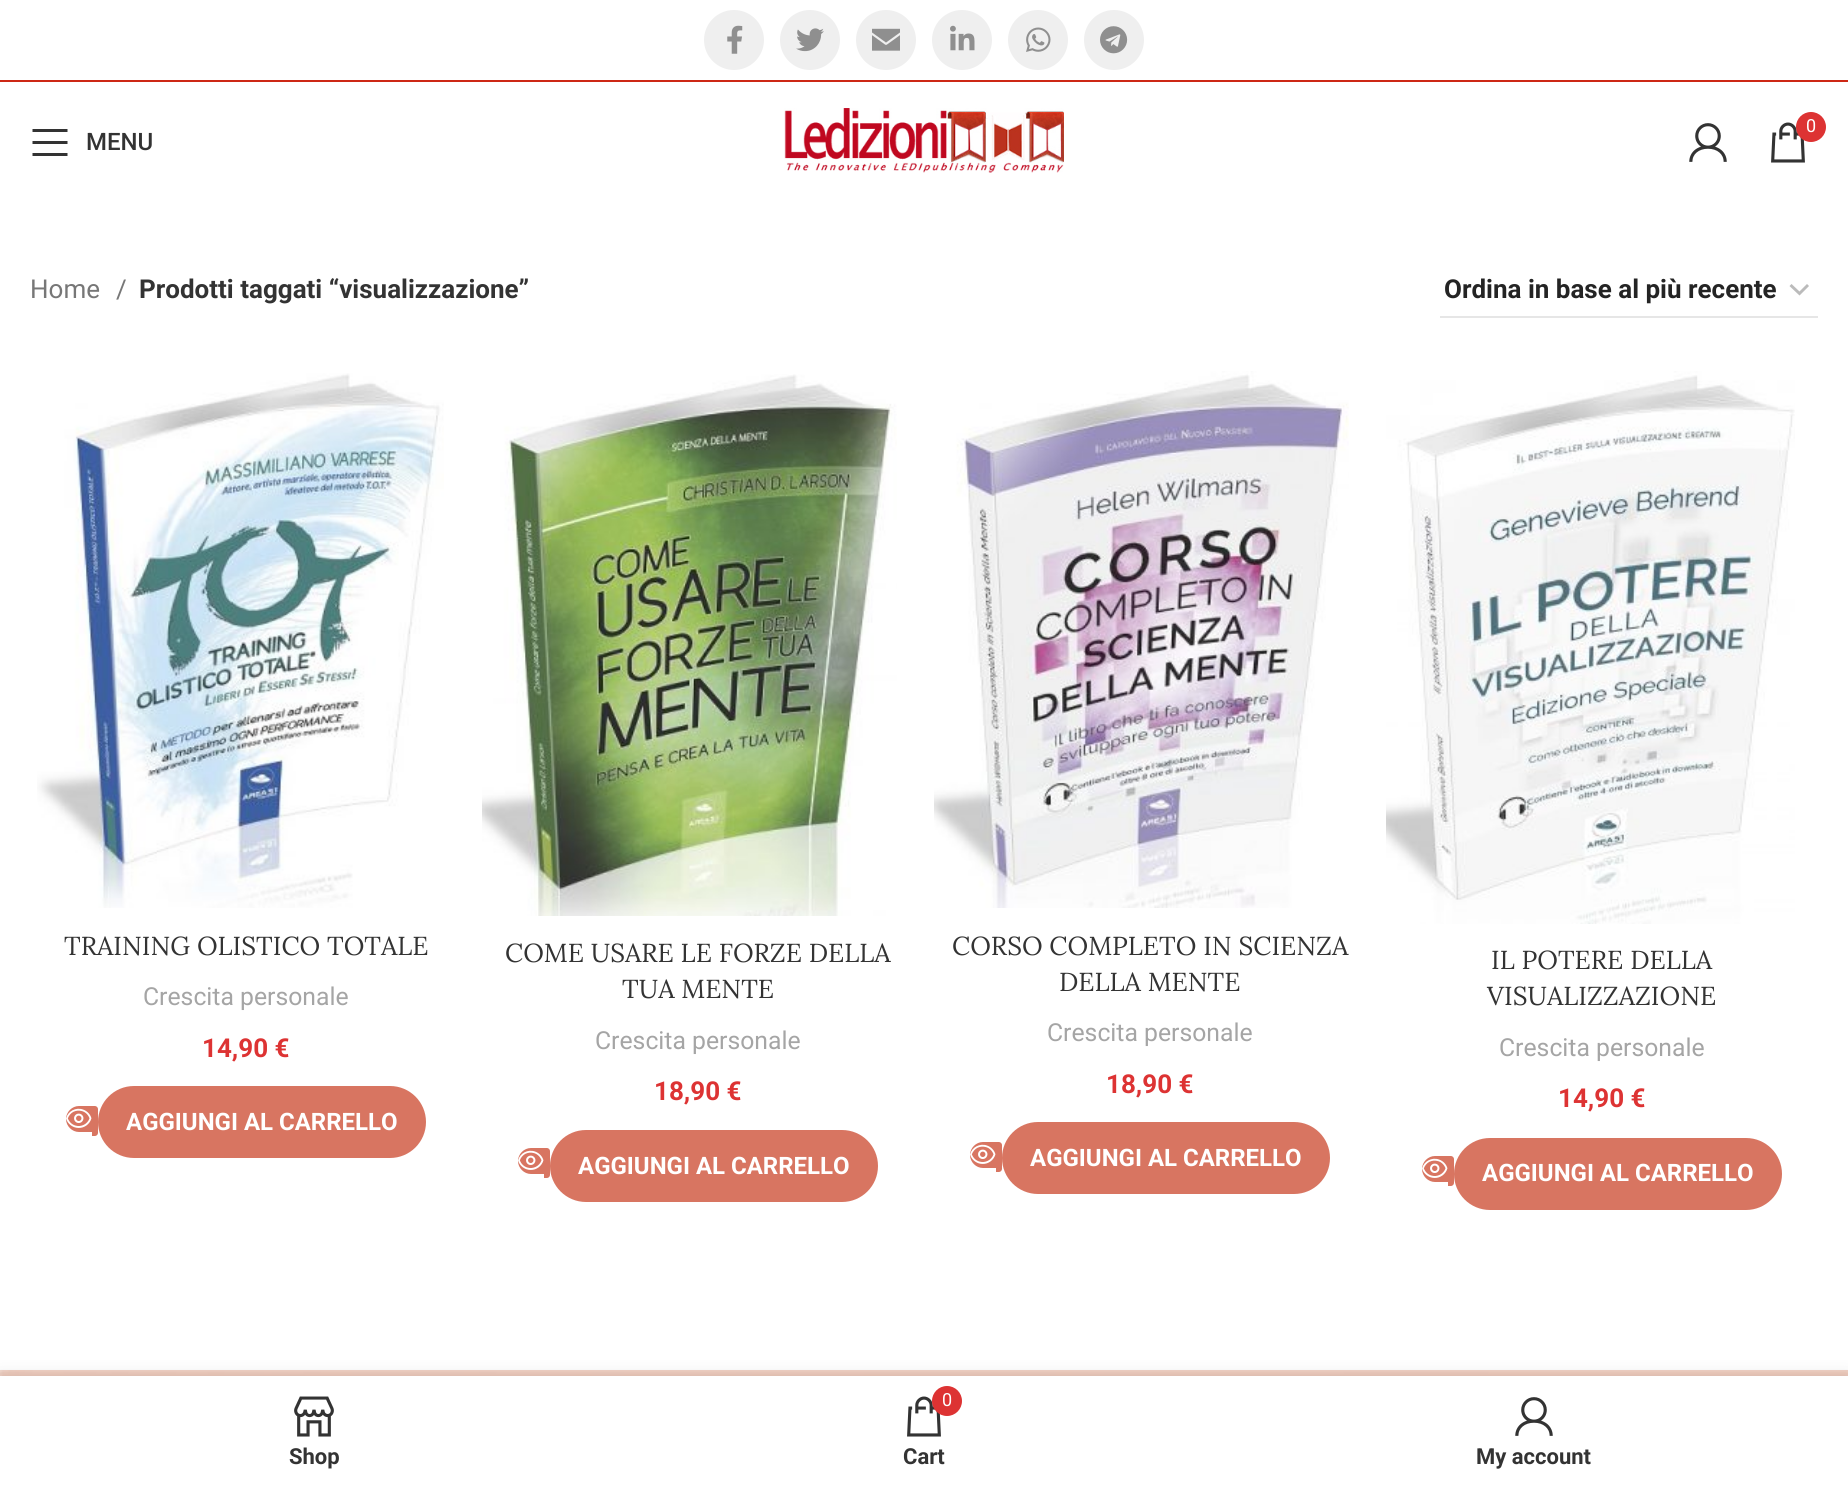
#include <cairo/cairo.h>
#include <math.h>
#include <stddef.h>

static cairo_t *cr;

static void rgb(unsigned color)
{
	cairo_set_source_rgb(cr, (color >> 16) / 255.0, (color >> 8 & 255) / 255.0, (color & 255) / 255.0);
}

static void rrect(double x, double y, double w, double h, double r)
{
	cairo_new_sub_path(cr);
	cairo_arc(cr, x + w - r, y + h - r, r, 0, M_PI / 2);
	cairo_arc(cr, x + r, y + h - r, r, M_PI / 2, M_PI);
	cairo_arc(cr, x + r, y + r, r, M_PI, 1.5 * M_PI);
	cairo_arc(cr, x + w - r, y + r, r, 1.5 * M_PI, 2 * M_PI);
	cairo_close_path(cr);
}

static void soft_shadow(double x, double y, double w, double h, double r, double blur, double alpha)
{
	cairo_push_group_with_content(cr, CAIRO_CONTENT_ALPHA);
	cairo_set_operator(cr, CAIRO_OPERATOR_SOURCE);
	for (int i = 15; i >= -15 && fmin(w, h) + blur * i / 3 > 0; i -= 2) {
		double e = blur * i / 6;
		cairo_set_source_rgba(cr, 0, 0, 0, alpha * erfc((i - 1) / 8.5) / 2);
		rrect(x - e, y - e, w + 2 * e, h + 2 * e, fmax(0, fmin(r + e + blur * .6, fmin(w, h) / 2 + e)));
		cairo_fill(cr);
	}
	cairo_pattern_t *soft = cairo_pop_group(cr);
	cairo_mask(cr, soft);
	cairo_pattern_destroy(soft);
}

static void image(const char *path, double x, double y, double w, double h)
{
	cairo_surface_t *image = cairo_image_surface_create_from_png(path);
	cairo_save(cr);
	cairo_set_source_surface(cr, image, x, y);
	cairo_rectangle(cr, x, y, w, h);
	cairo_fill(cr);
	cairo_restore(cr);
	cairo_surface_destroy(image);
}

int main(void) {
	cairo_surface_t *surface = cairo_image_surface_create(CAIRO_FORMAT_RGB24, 1848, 1485);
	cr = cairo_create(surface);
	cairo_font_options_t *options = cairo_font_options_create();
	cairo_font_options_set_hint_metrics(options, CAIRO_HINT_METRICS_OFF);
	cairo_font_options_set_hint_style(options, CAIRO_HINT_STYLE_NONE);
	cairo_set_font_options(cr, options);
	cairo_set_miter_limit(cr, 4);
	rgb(0xffffff);
	cairo_paint(cr);
	rgb(0xcd2815);
	cairo_rectangle(cr, 0, 80, 1848, 2);
	cairo_fill(cr);
	rgb(0xefefef);
	cairo_arc(cr, 734, 40, 30, 0, 2 * M_PI);
	cairo_fill(cr);
	image("img/1.png", 727, 25, 16, 29);
	cairo_arc(cr, 810, 40, 30, 0, 2 * M_PI);
	cairo_fill(cr);
	image("img/2.png", 796, 28, 28, 24);
	cairo_arc(cr, 886, 40, 30, 0, 2 * M_PI);
	cairo_fill(cr);
	image("img/3.png", 872, 28, 28, 23);
	cairo_arc(cr, 962, 40, 30, 0, 2 * M_PI);
	cairo_fill(cr);
	image("img/4.png", 950, 25, 25, 26);
	cairo_arc(cr, 1038, 40, 30, 0, 2 * M_PI);
	cairo_fill(cr);
	image("img/5.png", 1026, 27, 25, 25);
	cairo_arc(cr, 1114, 40, 30, 0, 2 * M_PI);
	cairo_fill(cr);
	image("img/6.png", 1100, 26, 28, 28);
	image("img/7.png", 784, 108, 280, 65);
	image("img/8.png", 1689, 123, 38, 39);
	image("img/9.png", 1771, 122, 34, 41);
	rgb(0xdd3333);
	cairo_arc(cr, 1811, 127, 15, 0, 2 * M_PI);
	cairo_fill(cr);
	rgb(0x333333);
	cairo_new_path(cr);
	cairo_move_to(cr, 32.5, 132);
	cairo_line_to(cr, 67.5, 132);
	cairo_line_to(cr, 67.5, 129);
	cairo_line_to(cr, 32.5, 129);
	cairo_close_path(cr);
	cairo_move_to(cr, 32.5, 144);
	cairo_line_to(cr, 67.5, 144);
	cairo_line_to(cr, 67.5, 141);
	cairo_line_to(cr, 32.5, 141);
	cairo_close_path(cr);
	cairo_move_to(cr, 32.5, 156);
	cairo_line_to(cr, 67.5, 156);
	cairo_line_to(cr, 67.5, 153);
	cairo_line_to(cr, 32.5, 153);
	cairo_close_path(cr);
	cairo_fill(cr);
	cairo_new_path(cr);
	cairo_move_to(cr, 1790.5, 285);
	cairo_line_to(cr, 1799.5, 293.5);
	cairo_line_to(cr, 1808, 285);
	rgb(0xbbbbbb);
	cairo_set_line_width(cr, 2.9);
	cairo_stroke(cr);
	rgb(0xe6e6e6);
	cairo_rectangle(cr, 1440, 316, 378, 2);
	cairo_fill(cr);
	image("img/10.png", 37, 373, 407, 535);
	rgb(0xd87561);
	cairo_new_path(cr);
	cairo_move_to(cr, 79, 1106);
	cairo_line_to(cr, 92, 1106);
	cairo_line_to(cr, 92, 1132);
	cairo_line_to(cr, 79, 1132);
	cairo_curve_to(cr, 72, 1132, 66, 1126, 66, 1119);
	cairo_curve_to(cr, 66, 1112, 72, 1106, 79, 1106);
	cairo_close_path(cr);
	cairo_fill(cr);
	cairo_new_path(cr);
	cairo_move_to(cr, 92, 1106);
	cairo_line_to(cr, 95, 1106);
	cairo_curve_to(cr, 96.5, 1106, 98, 1107.5, 98, 1109);
	cairo_line_to(cr, 98, 1133);
	cairo_curve_to(cr, 98, 1134.5, 96.5, 1136, 95, 1136);
	cairo_line_to(cr, 92, 1136);
	cairo_close_path(cr);
	cairo_fill(cr);
	image("img/11.png", 66, 1108, 26, 20);
	rrect(98, 1086, 328, 72, 36);
	cairo_fill(cr);
	image("img/12.png", 482, 374, 415, 542);
	cairo_new_path(cr);
	cairo_move_to(cr, 531, 1148);
	cairo_line_to(cr, 544, 1148);
	cairo_line_to(cr, 544, 1174);
	cairo_line_to(cr, 531, 1174);
	cairo_curve_to(cr, 524, 1174, 518, 1168, 518, 1161);
	cairo_curve_to(cr, 518, 1154, 524, 1148, 531, 1148);
	cairo_close_path(cr);
	cairo_fill(cr);
	cairo_new_path(cr);
	cairo_move_to(cr, 544, 1148);
	cairo_line_to(cr, 547, 1148);
	cairo_curve_to(cr, 548.5, 1148, 550, 1149.5, 550, 1151);
	cairo_line_to(cr, 550, 1175);
	cairo_curve_to(cr, 550, 1176.5, 548.5, 1178, 547, 1178);
	cairo_line_to(cr, 544, 1178);
	cairo_close_path(cr);
	cairo_fill(cr);
	image("img/11.png", 518, 1150, 26, 20);
	rrect(550, 1130, 328, 72, 36);
	cairo_fill(cr);
	image("img/13.png", 934, 371, 415, 537);
	cairo_new_path(cr);
	cairo_move_to(cr, 983, 1142);
	cairo_line_to(cr, 996, 1142);
	cairo_line_to(cr, 996, 1168);
	cairo_line_to(cr, 983, 1168);
	cairo_curve_to(cr, 976, 1168, 970, 1162, 970, 1155);
	cairo_curve_to(cr, 970, 1148, 976, 1142, 983, 1142);
	cairo_close_path(cr);
	cairo_fill(cr);
	cairo_new_path(cr);
	cairo_move_to(cr, 996, 1142);
	cairo_line_to(cr, 999, 1142);
	cairo_curve_to(cr, 1000.5, 1142, 1002, 1143.5, 1002, 1145);
	cairo_line_to(cr, 1002, 1169);
	cairo_curve_to(cr, 1002, 1170.5, 1000.5, 1172, 999, 1172);
	cairo_line_to(cr, 996, 1172);
	cairo_close_path(cr);
	cairo_fill(cr);
	image("img/11.png", 970, 1144, 26, 20);
	rrect(1002, 1122, 328, 72, 36);
	cairo_fill(cr);
	image("img/14.png", 1386, 371, 409, 553);
	cairo_new_path(cr);
	cairo_move_to(cr, 1435, 1156);
	cairo_line_to(cr, 1448, 1156);
	cairo_line_to(cr, 1448, 1182);
	cairo_line_to(cr, 1435, 1182);
	cairo_curve_to(cr, 1428, 1182, 1422, 1176, 1422, 1169);
	cairo_curve_to(cr, 1422, 1162, 1428, 1156, 1435, 1156);
	cairo_close_path(cr);
	cairo_fill(cr);
	cairo_new_path(cr);
	cairo_move_to(cr, 1448, 1156);
	cairo_line_to(cr, 1451, 1156);
	cairo_curve_to(cr, 1452.5, 1156, 1454, 1157.5, 1454, 1159);
	cairo_line_to(cr, 1454, 1183);
	cairo_curve_to(cr, 1454, 1184.5, 1452.5, 1186, 1451, 1186);
	cairo_line_to(cr, 1448, 1186);
	cairo_close_path(cr);
	cairo_fill(cr);
	image("img/11.png", 1422, 1158, 26, 20);
	rrect(1454, 1138, 328, 72, 36);
	cairo_fill(cr);
	image("img/15.png", 0, 1370, 1848, 6);
	rgb(0x000000);
	soft_shadow(0, 1376, 1848, 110, 0, 9, 0.12);
	rgb(0xffffff);
	cairo_rectangle(cr, 0, 1376, 1848, 109);
	cairo_fill(cr);
	image("img/16.png", 294, 1396, 40, 41);
	image("img/9.png", 907, 1396, 34, 41);
	rgb(0xdd3333);
	cairo_arc(cr, 947, 1401, 15, 0, 2 * M_PI);
	cairo_fill(cr);
	image("img/8.png", 1515, 1397, 38, 39);
	cairo_select_font_face(cr, "Roboto", CAIRO_FONT_SLANT_NORMAL, CAIRO_FONT_WEIGHT_NORMAL);
	cairo_set_font_size(cr, 18);
	rgb(0xffffff);
	cairo_move_to(cr, 1806, 132);
	cairo_show_text(cr, "0");
	cairo_select_font_face(cr, "Roboto Medium", CAIRO_FONT_SLANT_NORMAL, CAIRO_FONT_WEIGHT_NORMAL);
	cairo_set_font_size(cr, 24);
	rgb(0x333333);
	cairo_move_to(cr, 86, 150);
	cairo_show_text(cr, "MENU");
	cairo_select_font_face(cr, "Roboto", CAIRO_FONT_SLANT_NORMAL, CAIRO_FONT_WEIGHT_NORMAL);
	cairo_set_font_size(cr, 26);
	rgb(0x777777);
	cairo_move_to(cr, 30, 298);
	cairo_show_text(cr, "Home");
	cairo_move_to(cr, 116, 298);
	cairo_show_text(cr, "/");
	cairo_select_font_face(cr, "Roboto", CAIRO_FONT_SLANT_NORMAL, CAIRO_FONT_WEIGHT_BOLD);
	rgb(0x333333);
	cairo_move_to(cr, 139, 298);
	cairo_show_text(cr, "Prodotti taggati “visualizzazione”");
	rgb(0x242424);
	cairo_move_to(cr, 1444, 298);
	cairo_show_text(cr, "Ordina in base al più recente");
	cairo_select_font_face(cr, "Lora", CAIRO_FONT_SLANT_NORMAL, CAIRO_FONT_WEIGHT_NORMAL);
	rgb(0x333333);
	cairo_move_to(cr, 64, 955);
	cairo_show_text(cr, "TRAINING OLISTICO TOTALE");
	cairo_select_font_face(cr, "Roboto", CAIRO_FONT_SLANT_NORMAL, CAIRO_FONT_WEIGHT_NORMAL);
	cairo_set_font_size(cr, 24.75);
	rgb(0xa5a5a5);
	cairo_move_to(cr, 143, 1005);
	cairo_show_text(cr, "Crescita personale");
	cairo_select_font_face(cr, "Roboto", CAIRO_FONT_SLANT_NORMAL, CAIRO_FONT_WEIGHT_BOLD);
	cairo_set_font_size(cr, 26);
	rgb(0xdd3333);
	cairo_move_to(cr, 202, 1057);
	cairo_show_text(cr, "14,90 €");
	cairo_set_font_size(cr, 24);
	rgb(0xffffff);
	cairo_move_to(cr, 126, 1130);
	cairo_show_text(cr, "AGGIUNGI AL CARRELLO");
	cairo_select_font_face(cr, "Lora", CAIRO_FONT_SLANT_NORMAL, CAIRO_FONT_WEIGHT_NORMAL);
	cairo_set_font_size(cr, 26);
	rgb(0x333333);
	cairo_move_to(cr, 505, 962);
	cairo_show_text(cr, "COME USARE LE FORZE DELLA");
	cairo_move_to(cr, 622, 998);
	cairo_show_text(cr, "TUA MENTE");
	cairo_select_font_face(cr, "Roboto", CAIRO_FONT_SLANT_NORMAL, CAIRO_FONT_WEIGHT_NORMAL);
	cairo_set_font_size(cr, 24.75);
	rgb(0xa5a5a5);
	cairo_move_to(cr, 595, 1049);
	cairo_show_text(cr, "Crescita personale");
	cairo_select_font_face(cr, "Roboto", CAIRO_FONT_SLANT_NORMAL, CAIRO_FONT_WEIGHT_BOLD);
	cairo_set_font_size(cr, 26);
	rgb(0xdd3333);
	cairo_move_to(cr, 654, 1100);
	cairo_show_text(cr, "18,90 €");
	cairo_set_font_size(cr, 24);
	rgb(0xffffff);
	cairo_move_to(cr, 578, 1174);
	cairo_show_text(cr, "AGGIUNGI AL CARRELLO");
	cairo_select_font_face(cr, "Lora", CAIRO_FONT_SLANT_NORMAL, CAIRO_FONT_WEIGHT_NORMAL);
	cairo_set_font_size(cr, 26);
	rgb(0x333333);
	cairo_move_to(cr, 952, 955);
	cairo_show_text(cr, "CORSO COMPLETO IN SCIENZA");
	cairo_move_to(cr, 1059, 991);
	cairo_show_text(cr, "DELLA MENTE");
	cairo_select_font_face(cr, "Roboto", CAIRO_FONT_SLANT_NORMAL, CAIRO_FONT_WEIGHT_NORMAL);
	cairo_set_font_size(cr, 24.75);
	rgb(0xa5a5a5);
	cairo_move_to(cr, 1047, 1041);
	cairo_show_text(cr, "Crescita personale");
	cairo_select_font_face(cr, "Roboto", CAIRO_FONT_SLANT_NORMAL, CAIRO_FONT_WEIGHT_BOLD);
	cairo_set_font_size(cr, 26);
	rgb(0xdd3333);
	cairo_move_to(cr, 1106, 1093);
	cairo_show_text(cr, "18,90 €");
	cairo_set_font_size(cr, 24);
	rgb(0xffffff);
	cairo_move_to(cr, 1030, 1166);
	cairo_show_text(cr, "AGGIUNGI AL CARRELLO");
	cairo_select_font_face(cr, "Lora", CAIRO_FONT_SLANT_NORMAL, CAIRO_FONT_WEIGHT_NORMAL);
	cairo_set_font_size(cr, 26);
	rgb(0x333333);
	cairo_move_to(cr, 1491, 969);
	cairo_show_text(cr, "IL POTERE DELLA");
	cairo_move_to(cr, 1487, 1005);
	cairo_show_text(cr, "VISUALIZZAZIONE");
	cairo_select_font_face(cr, "Roboto", CAIRO_FONT_SLANT_NORMAL, CAIRO_FONT_WEIGHT_NORMAL);
	cairo_set_font_size(cr, 24.75);
	rgb(0xa5a5a5);
	cairo_move_to(cr, 1499, 1056);
	cairo_show_text(cr, "Crescita personale");
	cairo_select_font_face(cr, "Roboto", CAIRO_FONT_SLANT_NORMAL, CAIRO_FONT_WEIGHT_BOLD);
	cairo_set_font_size(cr, 26);
	rgb(0xdd3333);
	cairo_move_to(cr, 1558, 1107);
	cairo_show_text(cr, "14,90 €");
	cairo_set_font_size(cr, 24);
	rgb(0xffffff);
	cairo_move_to(cr, 1482, 1181);
	cairo_show_text(cr, "AGGIUNGI AL CARRELLO");
	cairo_set_font_size(cr, 22);
	rgb(0x333333);
	cairo_move_to(cr, 289, 1464);
	cairo_show_text(cr, "Shop");
	cairo_select_font_face(cr, "Roboto", CAIRO_FONT_SLANT_NORMAL, CAIRO_FONT_WEIGHT_NORMAL);
	cairo_set_font_size(cr, 18);
	rgb(0xffffff);
	cairo_move_to(cr, 942, 1406);
	cairo_show_text(cr, "0");
	cairo_select_font_face(cr, "Roboto", CAIRO_FONT_SLANT_NORMAL, CAIRO_FONT_WEIGHT_BOLD);
	cairo_set_font_size(cr, 22);
	rgb(0x333333);
	cairo_move_to(cr, 903, 1464);
	cairo_show_text(cr, "Cart");
	cairo_move_to(cr, 1476, 1464);
	cairo_show_text(cr, "My account");
	cairo_surface_write_to_png(surface, "page.png");
	cairo_font_options_destroy(options);
	cairo_destroy(cr);
	cairo_surface_destroy(surface);
	return 0;
}
